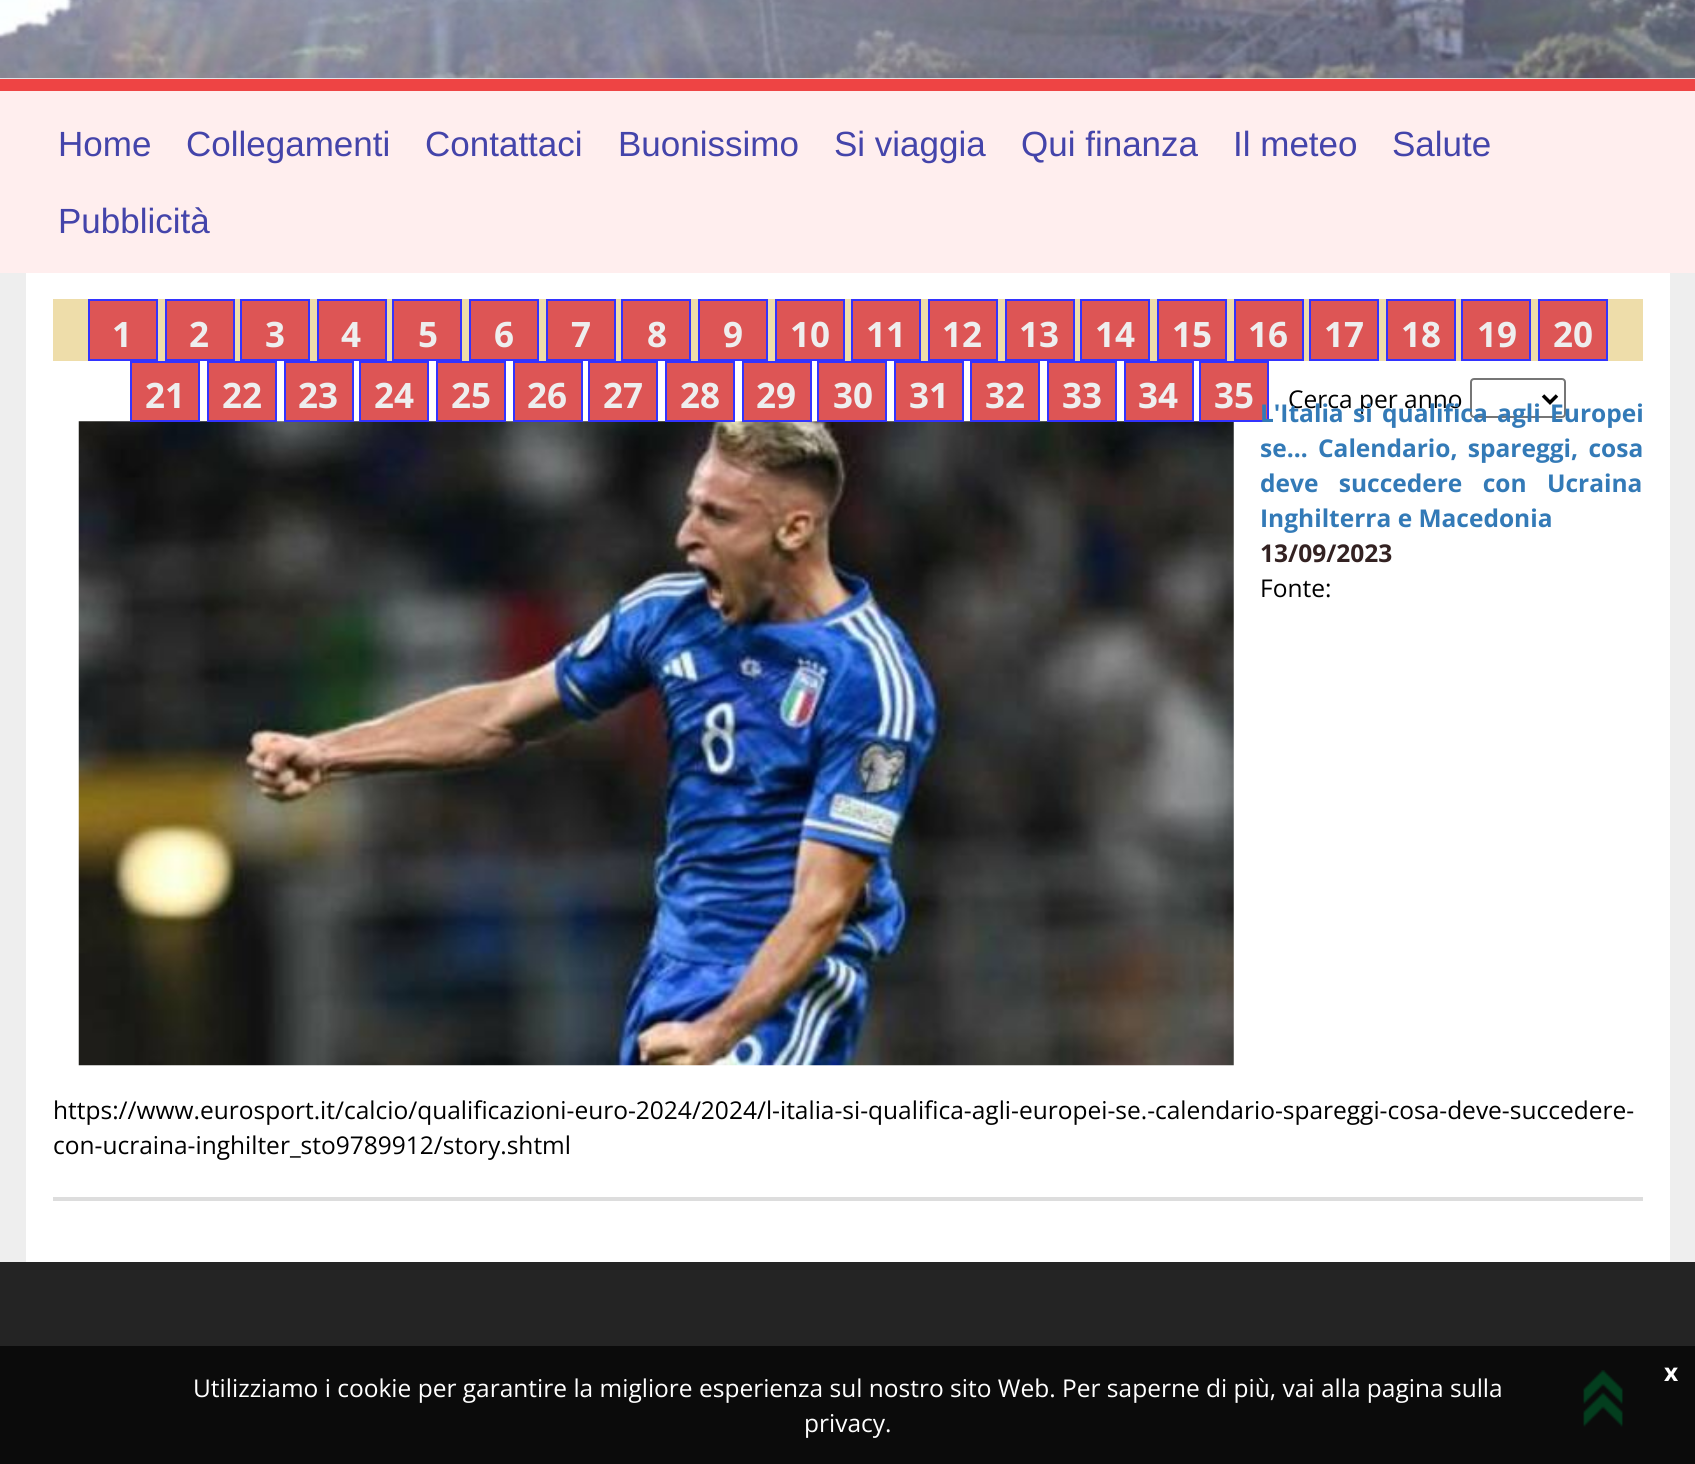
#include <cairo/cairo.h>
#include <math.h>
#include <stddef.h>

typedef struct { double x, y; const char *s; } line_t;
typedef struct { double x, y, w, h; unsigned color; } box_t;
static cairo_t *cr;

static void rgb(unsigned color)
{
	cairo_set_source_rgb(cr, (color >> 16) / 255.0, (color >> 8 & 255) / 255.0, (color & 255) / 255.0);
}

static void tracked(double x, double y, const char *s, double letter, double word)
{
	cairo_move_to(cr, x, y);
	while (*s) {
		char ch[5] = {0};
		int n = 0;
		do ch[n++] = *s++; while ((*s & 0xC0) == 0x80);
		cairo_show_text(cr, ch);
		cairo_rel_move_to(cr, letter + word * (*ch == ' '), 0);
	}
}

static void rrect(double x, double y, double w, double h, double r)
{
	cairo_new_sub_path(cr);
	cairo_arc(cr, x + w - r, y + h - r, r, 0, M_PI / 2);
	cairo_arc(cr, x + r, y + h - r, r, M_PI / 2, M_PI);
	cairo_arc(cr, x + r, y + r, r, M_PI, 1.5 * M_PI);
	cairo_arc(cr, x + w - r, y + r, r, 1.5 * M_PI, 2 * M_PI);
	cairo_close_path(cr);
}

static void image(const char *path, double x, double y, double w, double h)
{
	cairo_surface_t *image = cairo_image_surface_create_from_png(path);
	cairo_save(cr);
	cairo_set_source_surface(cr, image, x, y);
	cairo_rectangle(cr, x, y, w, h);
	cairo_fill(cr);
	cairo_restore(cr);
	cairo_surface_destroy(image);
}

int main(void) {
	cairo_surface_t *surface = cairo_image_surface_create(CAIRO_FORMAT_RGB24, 1695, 1464);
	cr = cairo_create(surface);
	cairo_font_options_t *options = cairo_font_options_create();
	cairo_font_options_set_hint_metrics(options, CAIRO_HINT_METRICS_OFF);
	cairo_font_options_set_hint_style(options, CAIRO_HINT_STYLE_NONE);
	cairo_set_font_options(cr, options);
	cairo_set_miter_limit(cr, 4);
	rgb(0xeeeeee);
	cairo_paint(cr);
	rgb(0xffffff);
	cairo_rectangle(cr, 0, 78, 1695, 1);
	cairo_fill(cr);
	image("img/1.png", 0, 0, 1695, 79);
	{
		static const box_t items[] = {
			{0, 91, 1695, 182, 0xffeeee},
			{0, 79, 1695, 12, 0xee4444},
			{26, 273, 1644, 989, 0xffffff},
			{53, 299, 1590, 62, 0xeeddaa},
		};
		for (size_t i = 0; i < sizeof items / sizeof *items; i++) {
			rgb(items[i].color);
			cairo_rectangle(cr, items[i].x, items[i].y, items[i].w, items[i].h);
			cairo_fill(cr);
		}
	}
	rgb(0xdd5555);
	cairo_rectangle(cr, 89, 300, 68, 60);
	cairo_fill_preserve(cr);
	rgb(0x3333ff);
	cairo_stroke(cr);
	rgb(0xdd5555);
	cairo_rectangle(cr, 166, 300, 68, 60);
	cairo_fill_preserve(cr);
	rgb(0x3333ff);
	cairo_stroke(cr);
	rgb(0xdd5555);
	cairo_rectangle(cr, 241, 300, 68, 60);
	cairo_fill_preserve(cr);
	rgb(0x3333ff);
	cairo_stroke(cr);
	rgb(0xdd5555);
	cairo_rectangle(cr, 318, 300, 68, 60);
	cairo_fill_preserve(cr);
	rgb(0x3333ff);
	cairo_stroke(cr);
	rgb(0xdd5555);
	cairo_rectangle(cr, 393, 300, 68, 60);
	cairo_fill_preserve(cr);
	rgb(0x3333ff);
	cairo_stroke(cr);
	rgb(0xdd5555);
	cairo_rectangle(cr, 470, 300, 68, 60);
	cairo_fill_preserve(cr);
	rgb(0x3333ff);
	cairo_stroke(cr);
	rgb(0xdd5555);
	cairo_rectangle(cr, 547, 300, 68, 60);
	cairo_fill_preserve(cr);
	rgb(0x3333ff);
	cairo_stroke(cr);
	rgb(0xdd5555);
	cairo_rectangle(cr, 622, 300, 68, 60);
	cairo_fill_preserve(cr);
	rgb(0x3333ff);
	cairo_stroke(cr);
	rgb(0xdd5555);
	cairo_rectangle(cr, 699, 300, 68, 60);
	cairo_fill_preserve(cr);
	rgb(0x3333ff);
	cairo_stroke(cr);
	rgb(0xdd5555);
	cairo_rectangle(cr, 776, 300, 68, 60);
	cairo_fill_preserve(cr);
	rgb(0x3333ff);
	cairo_stroke(cr);
	rgb(0xdd5555);
	cairo_rectangle(cr, 852, 300, 68, 60);
	cairo_fill_preserve(cr);
	rgb(0x3333ff);
	cairo_stroke(cr);
	rgb(0xdd5555);
	cairo_rectangle(cr, 929, 300, 68, 60);
	cairo_fill_preserve(cr);
	rgb(0x3333ff);
	cairo_stroke(cr);
	rgb(0xdd5555);
	cairo_rectangle(cr, 1006, 300, 68, 60);
	cairo_fill_preserve(cr);
	rgb(0x3333ff);
	cairo_stroke(cr);
	rgb(0xdd5555);
	cairo_rectangle(cr, 1081, 300, 68, 60);
	cairo_fill_preserve(cr);
	rgb(0x3333ff);
	cairo_stroke(cr);
	rgb(0xdd5555);
	cairo_rectangle(cr, 1158, 300, 68, 60);
	cairo_fill_preserve(cr);
	rgb(0x3333ff);
	cairo_stroke(cr);
	rgb(0xdd5555);
	cairo_rectangle(cr, 1235, 300, 68, 60);
	cairo_fill_preserve(cr);
	rgb(0x3333ff);
	cairo_stroke(cr);
	rgb(0xdd5555);
	cairo_rectangle(cr, 1310, 300, 68, 60);
	cairo_fill_preserve(cr);
	rgb(0x3333ff);
	cairo_stroke(cr);
	rgb(0xdd5555);
	cairo_rectangle(cr, 1387, 300, 68, 60);
	cairo_fill_preserve(cr);
	rgb(0x3333ff);
	cairo_stroke(cr);
	rgb(0xdd5555);
	cairo_rectangle(cr, 1462, 300, 68, 60);
	cairo_fill_preserve(cr);
	rgb(0x3333ff);
	cairo_stroke(cr);
	rgb(0xdd5555);
	cairo_rectangle(cr, 1539, 300, 68, 60);
	cairo_fill_preserve(cr);
	rgb(0x3333ff);
	cairo_stroke(cr);
	image("img/2.png", 78, 421, 1156, 645);
	rgb(0xdd5555);
	cairo_rectangle(cr, 131, 362, 68, 59);
	cairo_fill_preserve(cr);
	rgb(0x3333ff);
	cairo_stroke(cr);
	rgb(0xdd5555);
	cairo_rectangle(cr, 208, 362, 68, 59);
	cairo_fill_preserve(cr);
	rgb(0x3333ff);
	cairo_stroke(cr);
	rgb(0xdd5555);
	cairo_rectangle(cr, 285, 362, 68, 59);
	cairo_fill_preserve(cr);
	rgb(0x3333ff);
	cairo_stroke(cr);
	rgb(0xdd5555);
	cairo_rectangle(cr, 360, 362, 68, 59);
	cairo_fill_preserve(cr);
	rgb(0x3333ff);
	cairo_stroke(cr);
	rgb(0xdd5555);
	cairo_rectangle(cr, 437, 362, 68, 59);
	cairo_fill_preserve(cr);
	rgb(0x3333ff);
	cairo_stroke(cr);
	rgb(0xdd5555);
	cairo_rectangle(cr, 514, 362, 68, 59);
	cairo_fill_preserve(cr);
	rgb(0x3333ff);
	cairo_stroke(cr);
	rgb(0xdd5555);
	cairo_rectangle(cr, 589, 362, 68, 59);
	cairo_fill_preserve(cr);
	rgb(0x3333ff);
	cairo_stroke(cr);
	rgb(0xdd5555);
	cairo_rectangle(cr, 666, 362, 68, 59);
	cairo_fill_preserve(cr);
	rgb(0x3333ff);
	cairo_stroke(cr);
	rgb(0xdd5555);
	cairo_rectangle(cr, 743, 362, 68, 59);
	cairo_fill_preserve(cr);
	rgb(0x3333ff);
	cairo_stroke(cr);
	rgb(0xdd5555);
	cairo_rectangle(cr, 818, 362, 68, 59);
	cairo_fill_preserve(cr);
	rgb(0x3333ff);
	cairo_stroke(cr);
	rgb(0xdd5555);
	cairo_rectangle(cr, 895, 362, 68, 59);
	cairo_fill_preserve(cr);
	rgb(0x3333ff);
	cairo_stroke(cr);
	rgb(0xdd5555);
	cairo_rectangle(cr, 971, 362, 68, 59);
	cairo_fill_preserve(cr);
	rgb(0x3333ff);
	cairo_stroke(cr);
	rgb(0xdd5555);
	cairo_rectangle(cr, 1048, 362, 68, 59);
	cairo_fill_preserve(cr);
	rgb(0x3333ff);
	cairo_stroke(cr);
	rgb(0xdd5555);
	cairo_rectangle(cr, 1125, 362, 68, 59);
	cairo_fill_preserve(cr);
	rgb(0x3333ff);
	cairo_stroke(cr);
	rgb(0xdd5555);
	cairo_rectangle(cr, 1200, 362, 68, 59);
	cairo_fill_preserve(cr);
	rgb(0x3333ff);
	cairo_stroke(cr);
	rrect(1471, 379, 94, 38, 3);
	rgb(0x767676);
	cairo_stroke(cr);
	cairo_new_path(cr);
	cairo_move_to(cr, 1543, 395.5);
	cairo_line_to(cr, 1550, 402.5);
	cairo_line_to(cr, 1557, 395.5);
	rgb(0x000000);
	cairo_set_line_width(cr, 3.5);
	cairo_stroke(cr);
	rgb(0xdddddd);
	cairo_rectangle(cr, 53, 1197, 1590, 4);
	cairo_fill(cr);
	rgb(0x242424);
	cairo_rectangle(cr, 0, 1262, 1695, 202);
	cairo_fill(cr);
	image("img/3.png", 1582, 1370, 42, 57);
	cairo_set_source_rgba(cr, 0, 0, 0, 0.7);
	cairo_rectangle(cr, 0, 1346, 1695, 118);
	cairo_fill(cr);
	cairo_select_font_face(cr, "Liberation Sans", CAIRO_FONT_SLANT_NORMAL, CAIRO_FONT_WEIGHT_NORMAL);
	cairo_set_font_size(cr, 35);
	rgb(0x4444aa);
	{
		static const line_t items[] = {
			{58, 156, "Home"},
			{186, 156, "Collegamenti"},
			{425, 156, "Contattaci"},
			{618, 156, "Buonissimo"},
			{834, 156, "Si viaggia"},
			{1021, 156, "Qui finanza"},
			{1233, 156, "Il meteo"},
			{1392, 156, "Salute"},
			{58, 233, "Pubblicità"},
		};
		for (size_t i = 0; i < sizeof items / sizeof *items; i++) {
			cairo_move_to(cr, items[i].x, items[i].y);
			cairo_show_text(cr, items[i].s);
		}
	}
	cairo_select_font_face(cr, "Open Sans", CAIRO_FONT_SLANT_NORMAL, CAIRO_FONT_WEIGHT_BOLD);
	rgb(0xeeeeee);
	{
		static const line_t items[] = {
			{112, 347, "1"},
			{189, 347, "2"},
			{265, 347, "3"},
			{341, 347, "4"},
			{418, 347, "5"},
			{494, 347, "6"},
			{571, 347, "7"},
			{647, 347, "8"},
			{723, 347, "9"},
			{790, 347, "10"},
			{866, 347, "11"},
			{942, 347, "12"},
			{1019, 347, "13"},
			{1095, 347, "14"},
			{1172, 347, "15"},
			{1248, 347, "16"},
			{1324, 347, "17"},
			{1401, 347, "18"},
			{1477, 347, "19"},
			{1553, 347, "20"},
			{145, 408, "21"},
			{222, 408, "22"},
			{298, 408, "23"},
			{374, 408, "24"},
			{451, 408, "25"},
			{527, 408, "26"},
			{603, 408, "27"},
			{680, 408, "28"},
			{756, 408, "29"},
			{833, 408, "30"},
			{909, 408, "31"},
			{985, 408, "32"},
			{1062, 408, "33"},
			{1138, 408, "34"},
			{1214, 408, "35"},
		};
		for (size_t i = 0; i < sizeof items / sizeof *items; i++) {
			cairo_move_to(cr, items[i].x, items[i].y);
			cairo_show_text(cr, items[i].s);
		}
	}
	cairo_select_font_face(cr, "Open Sans", CAIRO_FONT_SLANT_NORMAL, CAIRO_FONT_WEIGHT_NORMAL);
	cairo_set_font_size(cr, 24.5);
	rgb(0x000000);
	cairo_move_to(cr, 1288, 408);
	cairo_show_text(cr, "Cerca per anno");
	cairo_select_font_face(cr, "Open Sans", CAIRO_FONT_SLANT_NORMAL, CAIRO_FONT_WEIGHT_BOLD);
	rgb(0x337ab7);
	tracked(1260, 422, "L'Italia si qualifica agli Europei", 0, 3);
	tracked(1260, 457, "se… Calendario, spareggi, cosa", 0, 4);
	tracked(1260, 492, "deve succedere con Ucraina", 0, 14);
	cairo_move_to(cr, 1260, 527);
	cairo_show_text(cr, "Inghilterra e Macedonia");
	rgb(0x332222);
	cairo_move_to(cr, 1260, 562);
	cairo_show_text(cr, "13/09/2023");
	cairo_select_font_face(cr, "Open Sans", CAIRO_FONT_SLANT_NORMAL, CAIRO_FONT_WEIGHT_NORMAL);
	rgb(0x000000);
	{
		static const line_t items[] = {
			{1260, 597, "Fonte:"},
			{53, 1119, "https://www.eurosport.it/calcio/qualificazioni-euro-2024/2024/l-italia-si-qualifica-agli-europei-se.-calendario-spareggi-cosa-deve-succedere-"},
			{53, 1154, "con-ucraina-inghilter_sto9789912/story.shtml"},
		};
		for (size_t i = 0; i < sizeof items / sizeof *items; i++) {
			cairo_move_to(cr, items[i].x, items[i].y);
			cairo_show_text(cr, items[i].s);
		}
	}
	cairo_select_font_face(cr, "Open Sans", CAIRO_FONT_SLANT_NORMAL, CAIRO_FONT_WEIGHT_BOLD);
	rgb(0xffffff);
	cairo_move_to(cr, 1664, 1381);
	cairo_show_text(cr, "x");
	cairo_select_font_face(cr, "Open Sans", CAIRO_FONT_SLANT_NORMAL, CAIRO_FONT_WEIGHT_NORMAL);
	cairo_move_to(cr, 193, 1397);
	cairo_show_text(cr, "Utilizziamo i cookie per garantire la migliore esperienza sul nostro sito Web. Per saperne di più, vai alla pagina sulla");
	cairo_move_to(cr, 804, 1432);
	cairo_show_text(cr, "privacy.");
	cairo_surface_write_to_png(surface, "page.png");
	cairo_font_options_destroy(options);
	cairo_destroy(cr);
	cairo_surface_destroy(surface);
	return 0;
}
